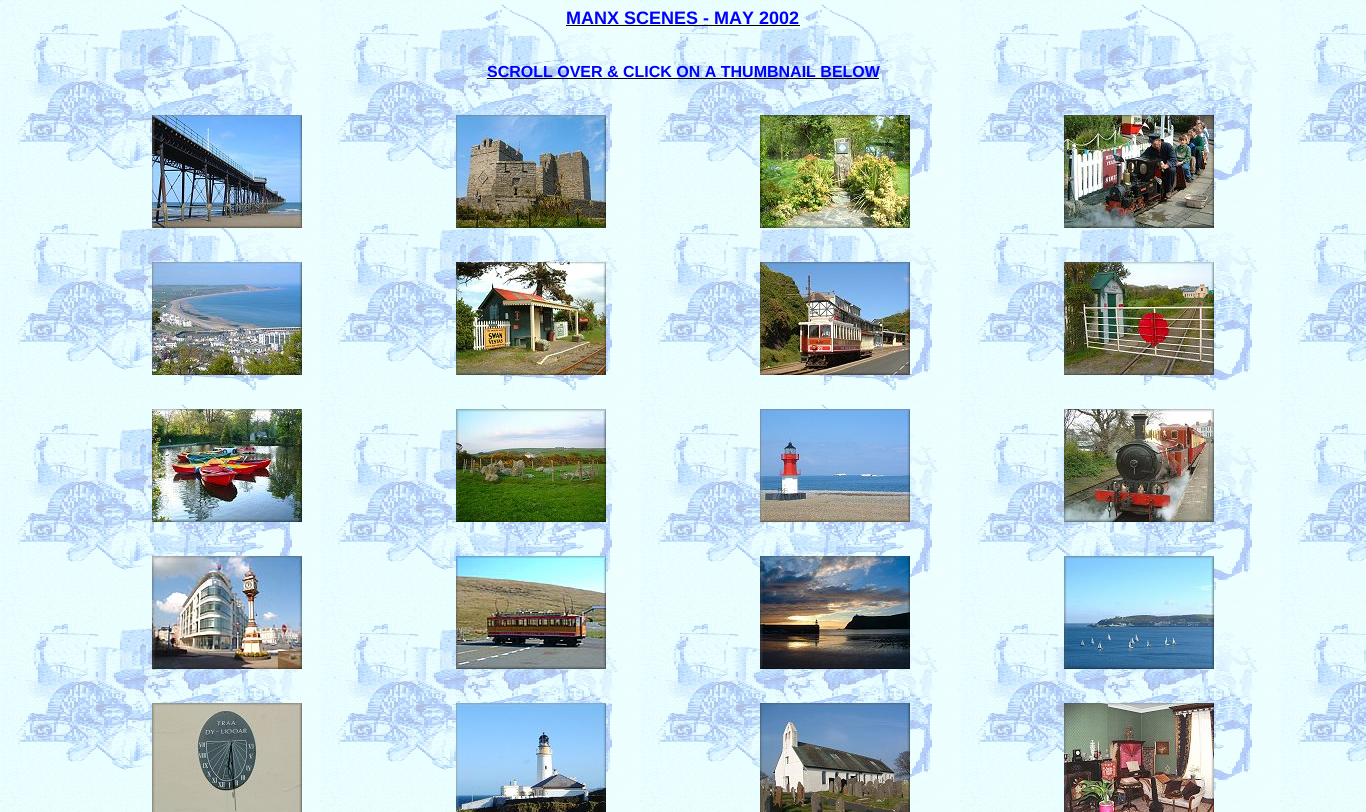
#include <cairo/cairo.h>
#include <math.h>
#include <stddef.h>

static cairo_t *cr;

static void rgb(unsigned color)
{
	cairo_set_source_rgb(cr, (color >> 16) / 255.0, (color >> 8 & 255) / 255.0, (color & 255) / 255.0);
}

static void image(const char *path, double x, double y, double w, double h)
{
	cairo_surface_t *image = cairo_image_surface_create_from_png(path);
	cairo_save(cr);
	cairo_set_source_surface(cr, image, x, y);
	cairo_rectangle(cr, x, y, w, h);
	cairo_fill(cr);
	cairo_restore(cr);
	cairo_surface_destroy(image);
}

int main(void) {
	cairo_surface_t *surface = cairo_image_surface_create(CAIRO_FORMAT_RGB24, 1366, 812);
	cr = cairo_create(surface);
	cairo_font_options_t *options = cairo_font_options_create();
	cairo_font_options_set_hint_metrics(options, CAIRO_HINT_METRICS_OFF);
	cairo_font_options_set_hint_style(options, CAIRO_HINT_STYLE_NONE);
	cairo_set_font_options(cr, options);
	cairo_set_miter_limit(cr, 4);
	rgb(0xffffff);
	cairo_paint(cr);
	image("img/1.png", 0, 0, 1366, 812);
	rgb(0x000000);
	cairo_rectangle(cr, 566, 25, 234, 1);
	cairo_fill(cr);
	cairo_rectangle(cr, 487, 78, 392, 1);
	cairo_fill(cr);
	image("img/2.png", 152, 115, 150, 113);
	image("img/3.png", 456, 115, 150, 113);
	image("img/4.png", 760, 115, 150, 113);
	image("img/5.png", 1064, 115, 150, 113);
	image("img/6.png", 152, 262, 150, 113);
	image("img/7.png", 456, 262, 150, 113);
	image("img/8.png", 760, 262, 150, 113);
	image("img/9.png", 1064, 262, 150, 113);
	image("img/10.png", 152, 409, 150, 113);
	image("img/11.png", 456, 409, 150, 113);
	image("img/12.png", 760, 409, 150, 113);
	image("img/13.png", 1064, 409, 150, 113);
	image("img/14.png", 152, 556, 150, 113);
	image("img/15.png", 456, 556, 150, 113);
	image("img/16.png", 760, 556, 150, 113);
	image("img/17.png", 1064, 556, 150, 113);
	image("img/18.png", 152, 703, 150, 109);
	image("img/19.png", 456, 703, 150, 109);
	image("img/20.png", 760, 703, 150, 109);
	image("img/21.png", 1064, 703, 150, 109);
	cairo_select_font_face(cr, "Liberation Sans", CAIRO_FONT_SLANT_NORMAL, CAIRO_FONT_WEIGHT_BOLD);
	cairo_set_font_size(cr, 18);
	rgb(0x0000ff);
	cairo_move_to(cr, 566, 24);
	cairo_show_text(cr, "MANX SCENES - MAY 2002");
	cairo_set_font_size(cr, 16);
	cairo_move_to(cr, 487, 77);
	cairo_show_text(cr, "SCROLL OVER & CLICK ON A THUMBNAIL BELOW");
	cairo_surface_write_to_png(surface, "page.png");
	cairo_font_options_destroy(options);
	cairo_destroy(cr);
	cairo_surface_destroy(surface);
	return 0;
}
